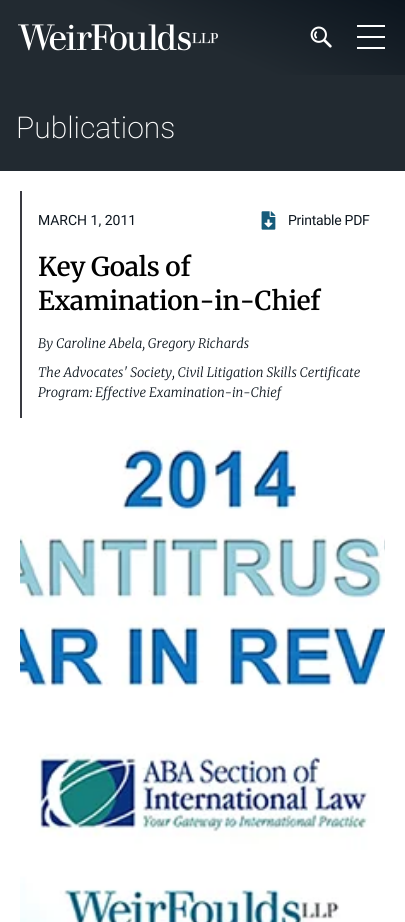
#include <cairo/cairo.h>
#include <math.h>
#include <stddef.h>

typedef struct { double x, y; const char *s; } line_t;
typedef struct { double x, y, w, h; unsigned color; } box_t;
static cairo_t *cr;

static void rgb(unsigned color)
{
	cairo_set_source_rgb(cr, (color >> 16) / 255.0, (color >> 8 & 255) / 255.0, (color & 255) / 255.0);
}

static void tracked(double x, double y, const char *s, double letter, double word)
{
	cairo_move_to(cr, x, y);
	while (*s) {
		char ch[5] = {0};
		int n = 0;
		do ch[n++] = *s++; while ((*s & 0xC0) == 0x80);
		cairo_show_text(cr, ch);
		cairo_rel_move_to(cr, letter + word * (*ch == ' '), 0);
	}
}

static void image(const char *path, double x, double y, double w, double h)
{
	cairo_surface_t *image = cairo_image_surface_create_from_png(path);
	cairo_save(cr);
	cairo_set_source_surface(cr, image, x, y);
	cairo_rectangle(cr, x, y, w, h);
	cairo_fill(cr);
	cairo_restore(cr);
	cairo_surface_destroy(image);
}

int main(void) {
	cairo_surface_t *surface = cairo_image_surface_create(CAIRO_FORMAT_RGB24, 405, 922);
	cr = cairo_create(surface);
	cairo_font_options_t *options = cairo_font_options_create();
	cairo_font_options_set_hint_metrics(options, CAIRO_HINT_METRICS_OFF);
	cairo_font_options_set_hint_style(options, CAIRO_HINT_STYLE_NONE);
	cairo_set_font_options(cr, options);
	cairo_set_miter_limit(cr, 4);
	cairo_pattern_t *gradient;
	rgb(0xffffff);
	cairo_paint(cr);
	gradient = cairo_pattern_create_linear(158, 142, 247, -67);
	cairo_pattern_add_color_stop_rgba(gradient, 0.47, 0.133, 0.165, 0.192, 1);
	cairo_pattern_add_color_stop_rgba(gradient, 1, 0.047, 0.082, 0.118, 1);
	cairo_set_source(cr, gradient);
	cairo_pattern_destroy(gradient);
	cairo_rectangle(cr, 0, 0, 405, 75);
	cairo_fill(cr);
	image("img/1.png", 18, 24, 200, 27);
	image("img/2.png", 310, 26, 22, 22);
	{
		static const box_t items[] = {
			{357, 25, 28, 2, 0xffffff},
			{357, 36, 28, 2, 0xffffff},
			{357, 47, 28, 2, 0xffffff},
			{0, 75, 405, 96, 0x222a31},
			{20, 191, 2, 227, 0x393a41},
		};
		for (size_t i = 0; i < sizeof items / sizeof *items; i++) {
			rgb(items[i].color);
			cairo_rectangle(cr, items[i].x, items[i].y, items[i].w, items[i].h);
			cairo_fill(cr);
		}
	}
	image("img/3.png", 261, 211, 15, 19);
	image("img/4.png", 20, 440, 365, 482);
	cairo_select_font_face(cr, "Roboto ExtraLight", CAIRO_FONT_SLANT_NORMAL, CAIRO_FONT_WEIGHT_NORMAL);
	cairo_set_font_size(cr, 30);
	rgb(0xffffff);
	cairo_move_to(cr, 16, 138);
	cairo_show_text(cr, "Publications");
	cairo_select_font_face(cr, "Roboto", CAIRO_FONT_SLANT_NORMAL, CAIRO_FONT_WEIGHT_NORMAL);
	cairo_set_font_size(cr, 14);
	rgb(0x0c151e);
	cairo_move_to(cr, 38, 225);
	cairo_show_text(cr, "MARCH 1, 2011");
	tracked(288, 225, "Printable PDF", -0.25, 0);
	cairo_select_font_face(cr, "Merriweather SemiBold", CAIRO_FONT_SLANT_NORMAL, CAIRO_FONT_WEIGHT_NORMAL);
	cairo_set_font_size(cr, 26);
	rgb(0x000000);
	tracked(38, 276, "Key Goals of", -0.25, 0);
	tracked(38, 310, "Examination-in-Chief", -0.25, 0);
	cairo_select_font_face(cr, "Merriweather Light", CAIRO_FONT_SLANT_ITALIC, CAIRO_FONT_WEIGHT_NORMAL);
	cairo_set_font_size(cr, 13);
	rgb(0x0c151e);
	{
		static const line_t items[] = {
			{38, 348, "By Caroline Abela, Gregory Richards"},
			{38, 377, "The Advocates' Society, Civil Litigation Skills Certificate"},
			{38, 397, "Program: Effective Examination-in-Chief"},
		};
		for (size_t i = 0; i < sizeof items / sizeof *items; i++) {
			cairo_move_to(cr, items[i].x, items[i].y);
			cairo_show_text(cr, items[i].s);
		}
	}
	cairo_surface_write_to_png(surface, "page.png");
	cairo_font_options_destroy(options);
	cairo_destroy(cr);
	cairo_surface_destroy(surface);
	return 0;
}
